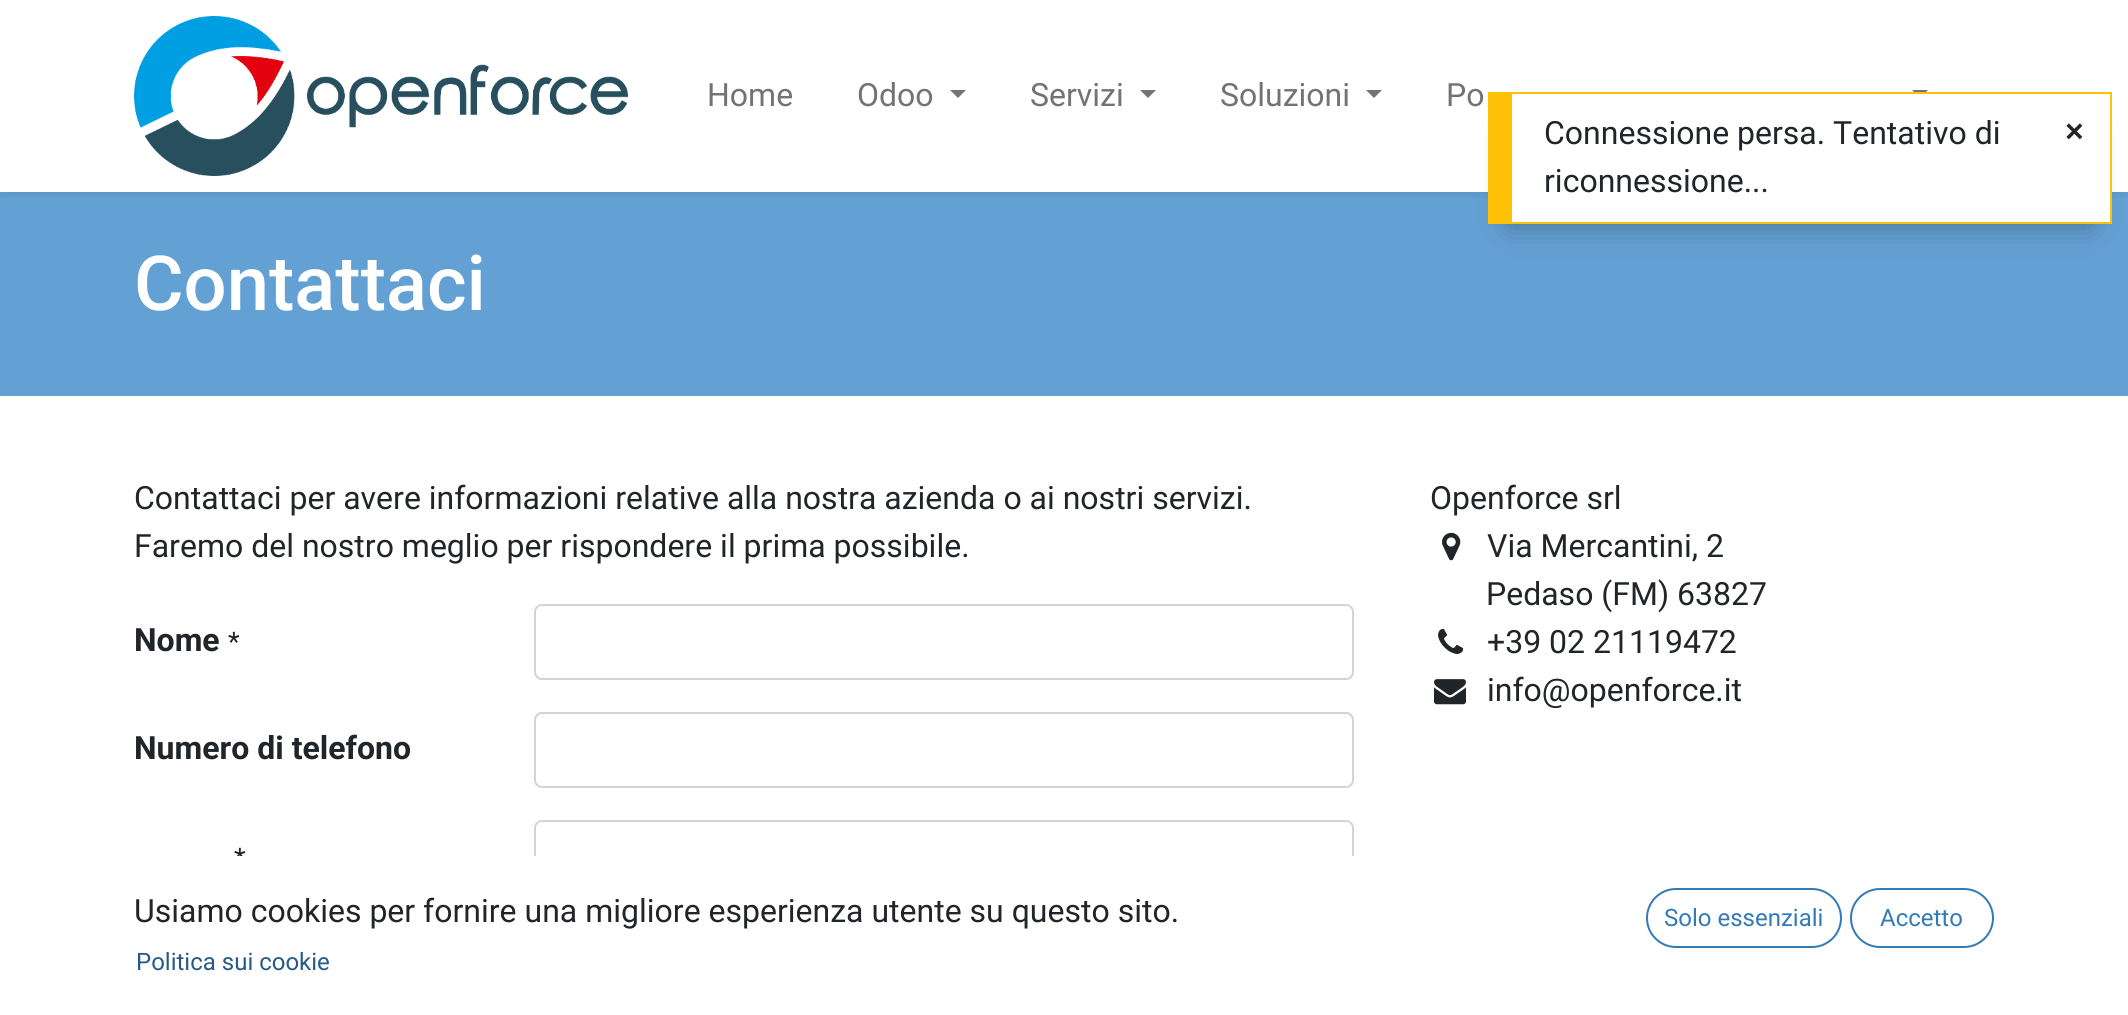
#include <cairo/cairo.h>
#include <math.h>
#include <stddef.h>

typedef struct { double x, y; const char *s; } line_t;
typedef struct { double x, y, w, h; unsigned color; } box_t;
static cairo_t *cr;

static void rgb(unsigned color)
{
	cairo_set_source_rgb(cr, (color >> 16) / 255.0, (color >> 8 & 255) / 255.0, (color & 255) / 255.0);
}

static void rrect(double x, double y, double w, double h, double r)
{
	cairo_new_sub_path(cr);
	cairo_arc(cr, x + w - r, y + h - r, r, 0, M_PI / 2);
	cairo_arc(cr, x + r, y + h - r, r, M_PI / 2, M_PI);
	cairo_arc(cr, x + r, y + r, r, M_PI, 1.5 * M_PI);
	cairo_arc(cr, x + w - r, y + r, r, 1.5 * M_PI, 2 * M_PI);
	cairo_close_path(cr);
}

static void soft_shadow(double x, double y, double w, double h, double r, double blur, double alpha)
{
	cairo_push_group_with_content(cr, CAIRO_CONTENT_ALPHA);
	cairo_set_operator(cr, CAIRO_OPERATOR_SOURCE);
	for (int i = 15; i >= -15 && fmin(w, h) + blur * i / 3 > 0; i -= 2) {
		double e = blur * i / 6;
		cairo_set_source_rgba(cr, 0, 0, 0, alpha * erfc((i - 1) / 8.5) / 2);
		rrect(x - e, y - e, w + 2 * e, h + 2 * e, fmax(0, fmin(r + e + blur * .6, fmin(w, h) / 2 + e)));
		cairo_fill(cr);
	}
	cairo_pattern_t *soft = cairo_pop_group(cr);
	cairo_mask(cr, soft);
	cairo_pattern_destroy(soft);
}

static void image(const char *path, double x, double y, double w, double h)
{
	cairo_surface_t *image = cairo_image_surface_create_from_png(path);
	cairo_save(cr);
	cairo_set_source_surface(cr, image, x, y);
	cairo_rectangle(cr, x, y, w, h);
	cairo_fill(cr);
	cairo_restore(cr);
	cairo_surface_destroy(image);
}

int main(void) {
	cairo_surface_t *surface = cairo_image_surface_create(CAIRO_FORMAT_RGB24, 2128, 1015);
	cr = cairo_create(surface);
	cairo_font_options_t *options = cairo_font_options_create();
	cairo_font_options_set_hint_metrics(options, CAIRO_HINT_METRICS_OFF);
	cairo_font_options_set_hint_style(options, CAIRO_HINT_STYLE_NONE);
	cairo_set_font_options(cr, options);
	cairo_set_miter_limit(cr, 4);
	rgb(0xffffff);
	cairo_paint(cr);
	rgb(0x63a0d4);
	cairo_rectangle(cr, 0, 192, 2128, 204);
	cairo_fill(cr);
	cairo_save(cr);
	cairo_rectangle(cr, 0, 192, 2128, 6);
	cairo_clip(cr);
	rgb(0x000000);
	soft_shadow(0, 4, 2128, 192, 0, 4, 0.07);
	cairo_restore(cr);
	image("img/1.png", 134, 16, 494, 160);
	rgb(0x737373);
	cairo_new_path(cr);
	cairo_move_to(cr, 950, 90);
	cairo_line_to(cr, 966, 90);
	cairo_line_to(cr, 958, 98);
	cairo_close_path(cr);
	cairo_fill(cr);
	cairo_new_path(cr);
	cairo_move_to(cr, 1140, 90);
	cairo_line_to(cr, 1156, 90);
	cairo_line_to(cr, 1148, 98);
	cairo_close_path(cr);
	cairo_fill(cr);
	cairo_new_path(cr);
	cairo_move_to(cr, 1366, 90);
	cairo_line_to(cr, 1382, 90);
	cairo_line_to(cr, 1374, 98);
	cairo_close_path(cr);
	cairo_fill(cr);
	cairo_new_path(cr);
	cairo_move_to(cr, 1912, 90);
	cairo_line_to(cr, 1928, 90);
	cairo_line_to(cr, 1920, 98);
	cairo_close_path(cr);
	cairo_fill(cr);
	rrect(535, 605, 818, 74, 7);
	rgb(0xced4da);
	cairo_stroke(cr);
	rrect(535, 713, 818, 74, 7);
	cairo_stroke(cr);
	rrect(535, 821, 818, 74, 7);
	cairo_stroke(cr);
	image("img/2.png", 1442, 532, 19, 29);
	image("img/3.png", 1438, 628, 26, 26);
	image("img/4.png", 1434, 679, 32, 26);
	rrect(1647, 889, 194, 58, 29);
	rgb(0x337ab7);
	cairo_stroke(cr);
	rrect(1851, 889, 142, 58, 29);
	cairo_stroke(cr);
	rgb(0x000000);
	soft_shadow(1508, 136, 584, 92, 0, 14, 0.25);
	{
		static const box_t items[] = {
			{1512, 94, 598, 128, 0xffffff},
			{1512, 92, 600, 2, 0xffc107},
			{2110, 92, 2, 132, 0xffc107},
			{1512, 222, 600, 2, 0xffc107},
			{1488, 92, 24, 132, 0xffc107},
		};
		for (size_t i = 0; i < sizeof items / sizeof *items; i++) {
			rgb(items[i].color);
			cairo_rectangle(cr, items[i].x, items[i].y, items[i].w, items[i].h);
			cairo_fill(cr);
		}
	}
	cairo_select_font_face(cr, "Roboto", CAIRO_FONT_SLANT_NORMAL, CAIRO_FONT_WEIGHT_NORMAL);
	cairo_set_font_size(cr, 32);
	rgb(0x737373);
	{
		static const line_t items[] = {
			{707, 106, "Home"},
			{857, 106, "Odoo"},
			{1030, 106, "Servizi"},
			{1220, 106, "Soluzioni"},
			{1446, 106, "Po"},
		};
		for (size_t i = 0; i < sizeof items / sizeof *items; i++) {
			cairo_move_to(cr, items[i].x, items[i].y);
			cairo_show_text(cr, items[i].s);
		}
	}
	cairo_select_font_face(cr, "Roboto Medium", CAIRO_FONT_SLANT_NORMAL, CAIRO_FONT_WEIGHT_NORMAL);
	cairo_set_font_size(cr, 76);
	rgb(0xffffff);
	cairo_move_to(cr, 134, 310);
	cairo_show_text(cr, "Contattaci");
	cairo_select_font_face(cr, "Roboto", CAIRO_FONT_SLANT_NORMAL, CAIRO_FONT_WEIGHT_NORMAL);
	cairo_set_font_size(cr, 32);
	rgb(0x212529);
	cairo_move_to(cr, 134, 509);
	cairo_show_text(cr, "Contattaci per avere informazioni relative alla nostra azienda o ai nostri servizi.");
	cairo_move_to(cr, 134, 557);
	cairo_show_text(cr, "Faremo del nostro meglio per rispondere il prima possibile.");
	cairo_select_font_face(cr, "Roboto", CAIRO_FONT_SLANT_NORMAL, CAIRO_FONT_WEIGHT_BOLD);
	cairo_move_to(cr, 134, 651);
	cairo_show_text(cr, "Nome");
	cairo_select_font_face(cr, "Roboto", CAIRO_FONT_SLANT_NORMAL, CAIRO_FONT_WEIGHT_NORMAL);
	cairo_set_font_size(cr, 27);
	cairo_move_to(cr, 228, 651);
	cairo_show_text(cr, "*");
	cairo_select_font_face(cr, "Roboto", CAIRO_FONT_SLANT_NORMAL, CAIRO_FONT_WEIGHT_BOLD);
	cairo_set_font_size(cr, 32);
	cairo_move_to(cr, 134, 759);
	cairo_show_text(cr, "Numero di telefono");
	cairo_select_font_face(cr, "Roboto", CAIRO_FONT_SLANT_NORMAL, CAIRO_FONT_WEIGHT_NORMAL);
	cairo_set_font_size(cr, 27);
	cairo_move_to(cr, 234, 867);
	cairo_show_text(cr, "*");
	cairo_set_font_size(cr, 32);
	{
		static const line_t items[] = {
			{1430, 509, "Openforce srl"},
			{1487, 557, "Via Mercantini, 2"},
			{1486, 605, "Pedaso (FM) 63827"},
			{1487, 653, "+39 02 21119472"},
			{1487, 701, "info@openforce.it"},
		};
		for (size_t i = 0; i < sizeof items / sizeof *items; i++) {
			cairo_move_to(cr, items[i].x, items[i].y);
			cairo_show_text(cr, items[i].s);
		}
	}
	rgb(0xffffff);
	cairo_rectangle(cr, 236, 856, 1118, 40);
	cairo_fill(cr);
	rgb(0x212529);
	cairo_move_to(cr, 134, 922);
	cairo_show_text(cr, "Usiamo cookies per fornire una migliore esperienza utente su questo sito.");
	cairo_set_font_size(cr, 24);
	rgb(0x265a87);
	cairo_move_to(cr, 136, 970);
	cairo_show_text(cr, "Politica sui cookie");
	rgb(0x337ab7);
	cairo_move_to(cr, 1664, 926);
	cairo_show_text(cr, "Solo essenziali");
	cairo_move_to(cr, 1880, 926);
	cairo_show_text(cr, "Accetto");
	cairo_set_font_size(cr, 32);
	rgb(0x212529);
	cairo_move_to(cr, 1544, 144);
	cairo_show_text(cr, "Connessione persa. Tentativo di");
	cairo_move_to(cr, 1544, 192);
	cairo_show_text(cr, "riconnessione...");
	cairo_select_font_face(cr, "Liberation Sans", CAIRO_FONT_SLANT_NORMAL, CAIRO_FONT_WEIGHT_BOLD);
	cairo_move_to(cr, 2065, 142);
	cairo_show_text(cr, "×");
	cairo_surface_write_to_png(surface, "page.png");
	cairo_font_options_destroy(options);
	cairo_destroy(cr);
	cairo_surface_destroy(surface);
	return 0;
}
